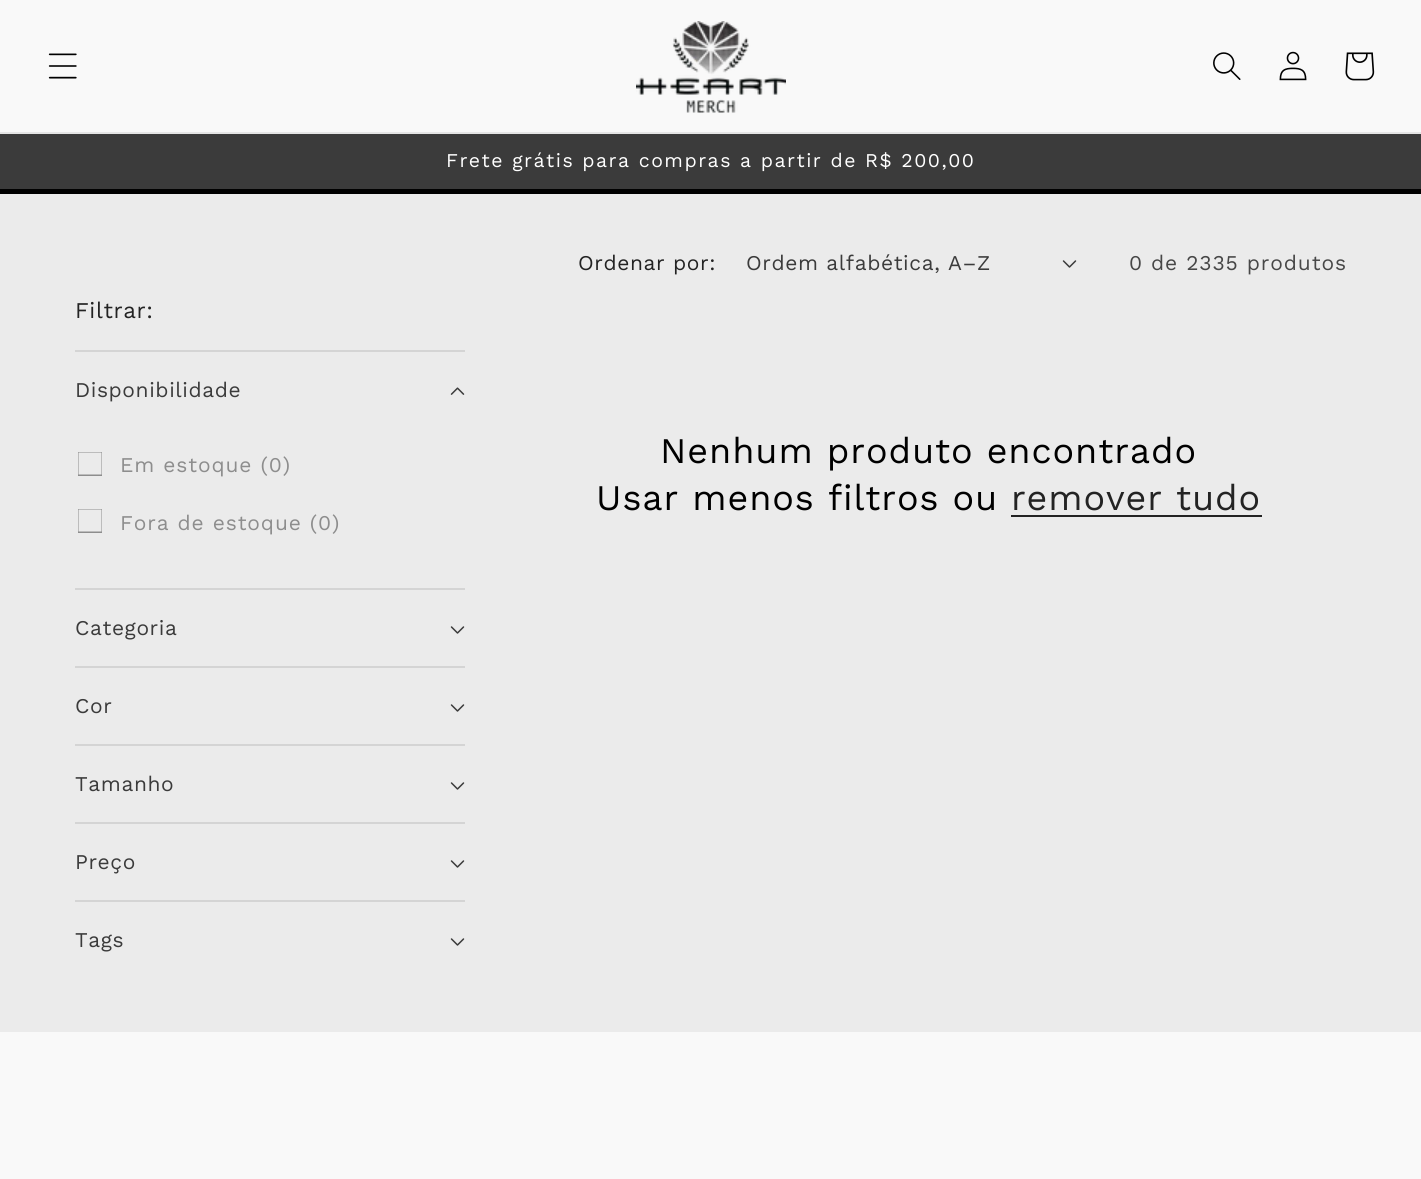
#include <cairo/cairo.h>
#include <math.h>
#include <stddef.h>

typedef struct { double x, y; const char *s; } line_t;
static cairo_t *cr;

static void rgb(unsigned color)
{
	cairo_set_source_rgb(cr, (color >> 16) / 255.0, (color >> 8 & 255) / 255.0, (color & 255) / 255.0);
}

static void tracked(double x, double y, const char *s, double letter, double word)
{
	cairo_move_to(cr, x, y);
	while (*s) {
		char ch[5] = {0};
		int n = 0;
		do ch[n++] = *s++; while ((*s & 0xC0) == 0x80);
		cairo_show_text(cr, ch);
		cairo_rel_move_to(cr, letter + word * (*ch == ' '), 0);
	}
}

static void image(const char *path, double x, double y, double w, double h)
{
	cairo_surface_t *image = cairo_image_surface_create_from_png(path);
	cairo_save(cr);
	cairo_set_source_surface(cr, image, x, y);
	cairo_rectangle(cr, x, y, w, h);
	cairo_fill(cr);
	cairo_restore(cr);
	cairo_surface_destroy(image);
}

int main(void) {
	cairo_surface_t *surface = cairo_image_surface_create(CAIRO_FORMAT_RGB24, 1421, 1179);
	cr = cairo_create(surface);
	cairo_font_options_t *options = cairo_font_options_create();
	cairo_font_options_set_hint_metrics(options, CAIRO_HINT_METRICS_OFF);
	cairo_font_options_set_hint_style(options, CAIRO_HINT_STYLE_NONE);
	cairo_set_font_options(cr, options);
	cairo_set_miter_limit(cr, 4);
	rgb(0xebebeb);
	cairo_paint(cr);
	rgb(0xf9f9f9);
	cairo_rectangle(cr, 0, 0, 1421, 132);
	cairo_fill(cr);
	rgb(0xe5e5e5);
	cairo_rectangle(cr, 0, 132, 1421, 2);
	cairo_fill(cr);
	image("img/1.png", 48, 53, 29, 26);
	image("img/2.png", 636, 21, 150, 92);
	image("img/3.png", 1213, 52, 28, 28);
	image("img/4.png", 1279, 51, 28, 30);
	image("img/5.png", 1345, 52, 30, 29);
	rgb(0x3b3b3b);
	cairo_rectangle(cr, 0, 134, 1421, 55);
	cairo_fill(cr);
	rgb(0x000000);
	cairo_rectangle(cr, 0, 189, 1421, 5);
	cairo_fill(cr);
	image("img/6.png", 1062, 260, 15, 8);
	rgb(0xd4d4d4);
	cairo_rectangle(cr, 75, 350, 390, 2);
	cairo_fill(cr);
	image("img/7.png", 450, 387, 15, 8);
	cairo_save(cr);
	cairo_rectangle(cr, 78, 452, 24, 24);
	cairo_clip(cr);
	cairo_rectangle(cr, 77.75, 451.75, 24.5, 23.5);
	rgb(0x8d8d8d);
	cairo_set_line_width(cr, 1.5);
	cairo_stroke(cr);
	cairo_restore(cr);
	cairo_save(cr);
	cairo_rectangle(cr, 78, 509, 24, 24);
	cairo_clip(cr);
	cairo_rectangle(cr, 77.75, 508.75, 24.5, 23.5);
	rgb(0x8d8d8d);
	cairo_set_line_width(cr, 1.5);
	cairo_stroke(cr);
	cairo_restore(cr);
	cairo_rectangle(cr, 75, 588, 390, 2);
	cairo_fill(cr);
	image("img/6.png", 450, 626, 15, 8);
	cairo_rectangle(cr, 75, 666, 390, 2);
	cairo_fill(cr);
	image("img/6.png", 450, 704, 15, 8);
	cairo_rectangle(cr, 75, 744, 390, 2);
	cairo_fill(cr);
	image("img/6.png", 450, 782, 15, 8);
	cairo_rectangle(cr, 75, 822, 390, 2);
	cairo_fill(cr);
	image("img/6.png", 450, 860, 15, 8);
	cairo_rectangle(cr, 75, 900, 390, 2);
	cairo_fill(cr);
	image("img/6.png", 450, 938, 15, 8);
	rgb(0x232323);
	cairo_rectangle(cr, 1011, 515, 251, 2);
	cairo_fill(cr);
	rgb(0xf9f9f9);
	cairo_rectangle(cr, 0, 1032, 1421, 147);
	cairo_fill(cr);
	cairo_select_font_face(cr, "Work Sans", CAIRO_FONT_SLANT_NORMAL, CAIRO_FONT_WEIGHT_NORMAL);
	cairo_set_font_size(cr, 19.5);
	rgb(0xffffff);
	tracked(446, 167, "Frete grátis para compras a partir de R$ 200,00", 1.5, 0);
	cairo_set_font_size(cr, 21);
	rgb(0x232323);
	tracked(578, 270, "Ordenar por:", 0.6, 0);
	rgb(0x3b3b3b);
	tracked(746, 270, "Ordem alfabética, A–Z", 0.6, 0);
	rgb(0x474747);
	tracked(1129, 270, "0 de 2335 produtos", 0.9, 0);
	cairo_set_font_size(cr, 22.5);
	rgb(0x232323);
	tracked(75, 318, "Filtrar:", 0.6, 0);
	cairo_set_font_size(cr, 21);
	rgb(0x3b3b3b);
	tracked(75, 397, "Disponibilidade", 0.6, 0);
	rgb(0x8d8d8d);
	tracked(120, 472, "Em estoque (0)", 0.9, 0);
	tracked(120, 530, "Fora de estoque (0)", 0.9, 0);
	rgb(0x3b3b3b);
	{
		static const line_t items[] = {
			{75, 635, "Categoria"},
			{75, 713, "Cor"},
			{75, 791, "Tamanho"},
			{75, 869, "Preço"},
			{75, 947, "Tags"},
		};
		for (size_t i = 0; i < sizeof items / sizeof *items; i++) {
			tracked(items[i].x, items[i].y, items[i].s, 0.6, 0);
		}
	}
	cairo_set_font_size(cr, 36);
	rgb(0x000000);
	tracked(660, 463, "Nenhum produto encontrado", 0.9, 0);
	tracked(596, 510, "Usar menos filtros ou", 0.9, 0);
	rgb(0x232323);
	tracked(1011, 510, "remover tudo", 0.9, 0);
	cairo_surface_write_to_png(surface, "page.png");
	cairo_font_options_destroy(options);
	cairo_destroy(cr);
	cairo_surface_destroy(surface);
	return 0;
}
